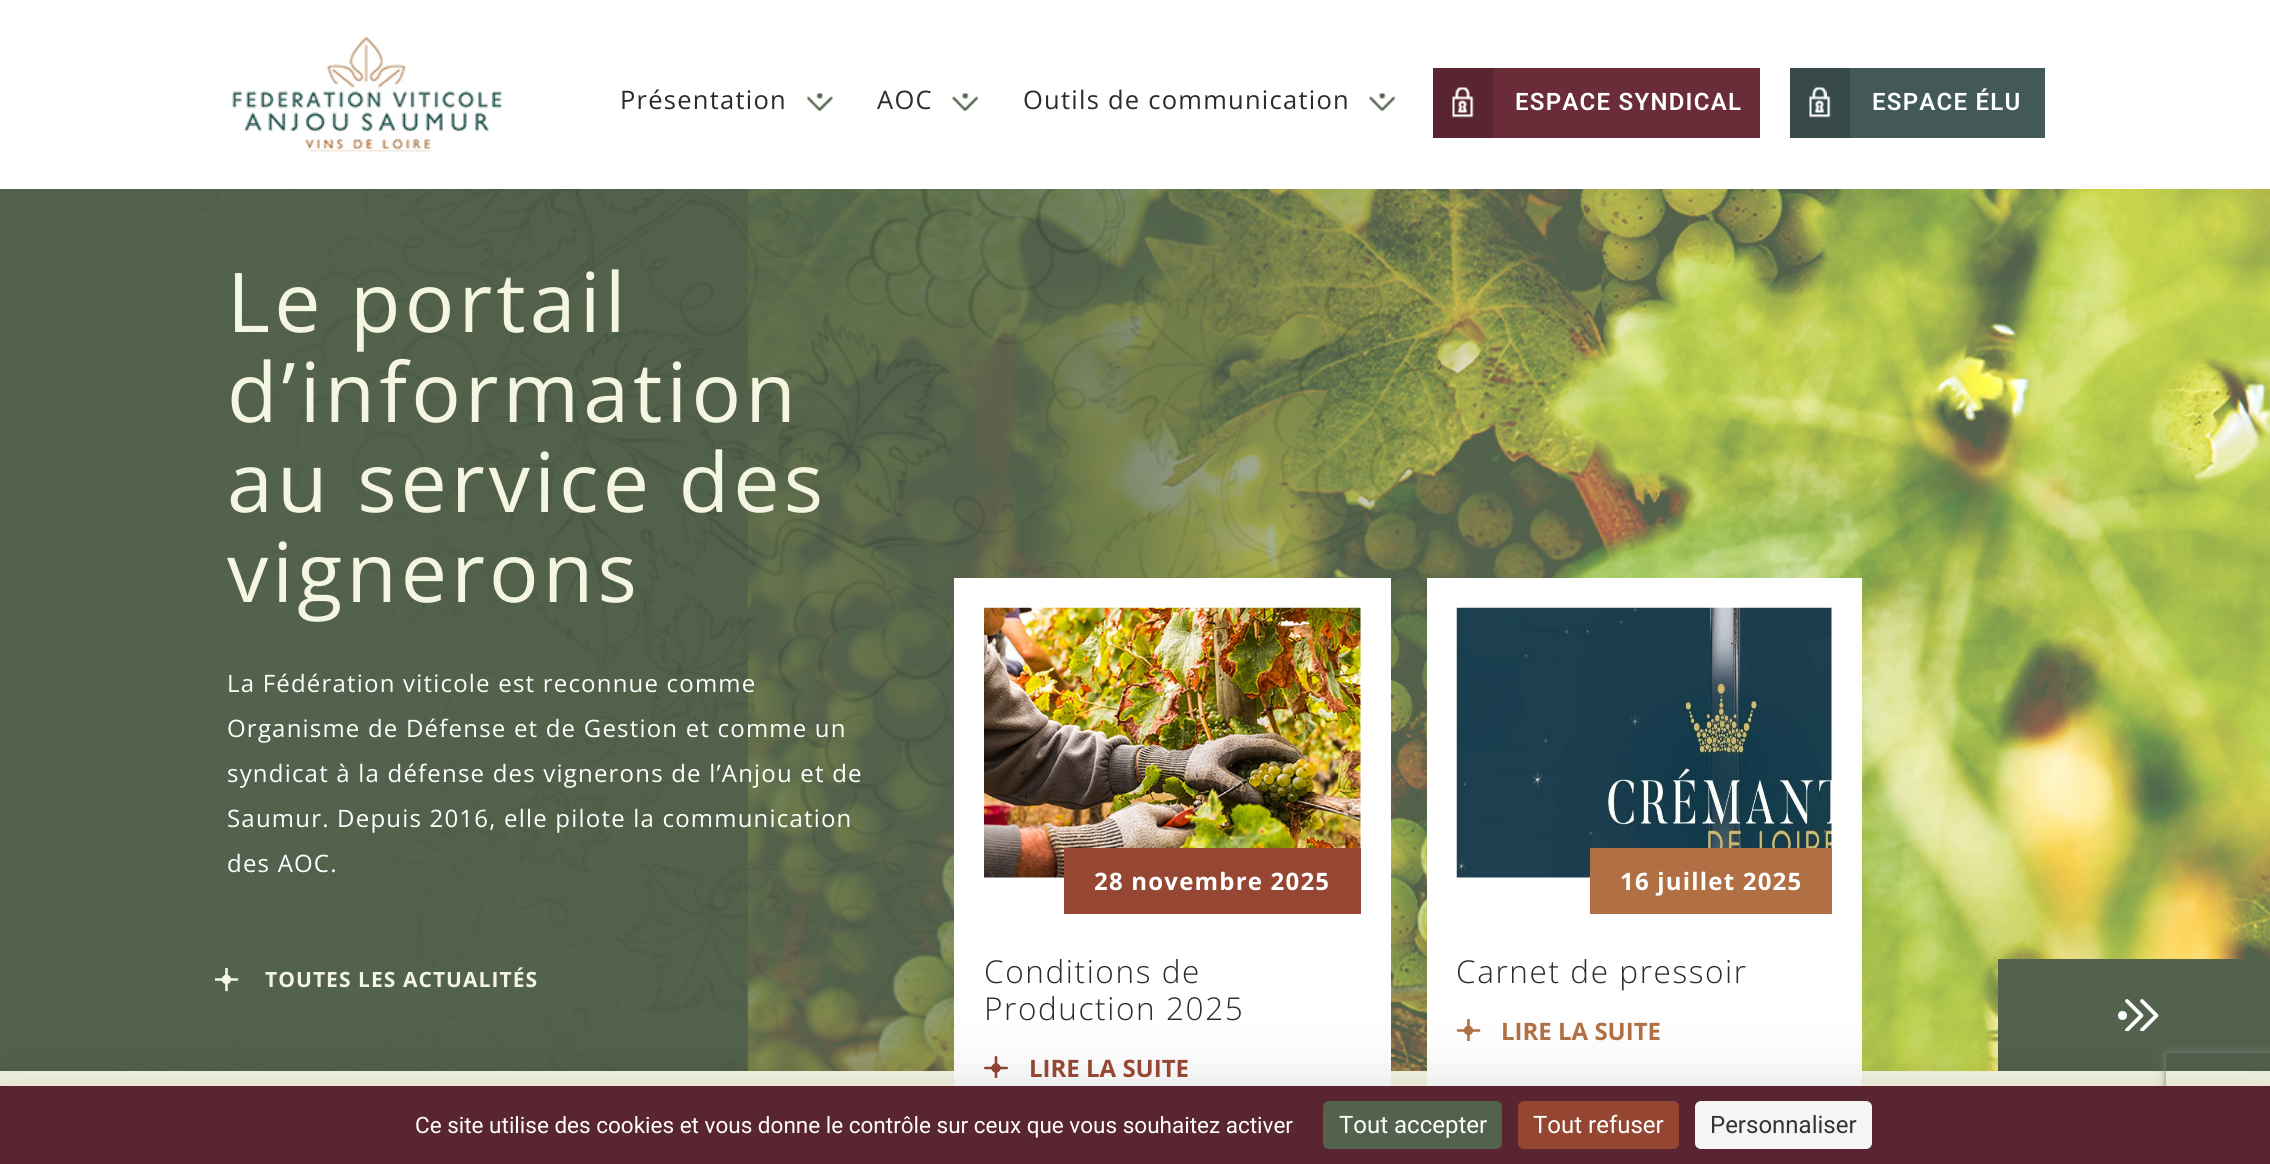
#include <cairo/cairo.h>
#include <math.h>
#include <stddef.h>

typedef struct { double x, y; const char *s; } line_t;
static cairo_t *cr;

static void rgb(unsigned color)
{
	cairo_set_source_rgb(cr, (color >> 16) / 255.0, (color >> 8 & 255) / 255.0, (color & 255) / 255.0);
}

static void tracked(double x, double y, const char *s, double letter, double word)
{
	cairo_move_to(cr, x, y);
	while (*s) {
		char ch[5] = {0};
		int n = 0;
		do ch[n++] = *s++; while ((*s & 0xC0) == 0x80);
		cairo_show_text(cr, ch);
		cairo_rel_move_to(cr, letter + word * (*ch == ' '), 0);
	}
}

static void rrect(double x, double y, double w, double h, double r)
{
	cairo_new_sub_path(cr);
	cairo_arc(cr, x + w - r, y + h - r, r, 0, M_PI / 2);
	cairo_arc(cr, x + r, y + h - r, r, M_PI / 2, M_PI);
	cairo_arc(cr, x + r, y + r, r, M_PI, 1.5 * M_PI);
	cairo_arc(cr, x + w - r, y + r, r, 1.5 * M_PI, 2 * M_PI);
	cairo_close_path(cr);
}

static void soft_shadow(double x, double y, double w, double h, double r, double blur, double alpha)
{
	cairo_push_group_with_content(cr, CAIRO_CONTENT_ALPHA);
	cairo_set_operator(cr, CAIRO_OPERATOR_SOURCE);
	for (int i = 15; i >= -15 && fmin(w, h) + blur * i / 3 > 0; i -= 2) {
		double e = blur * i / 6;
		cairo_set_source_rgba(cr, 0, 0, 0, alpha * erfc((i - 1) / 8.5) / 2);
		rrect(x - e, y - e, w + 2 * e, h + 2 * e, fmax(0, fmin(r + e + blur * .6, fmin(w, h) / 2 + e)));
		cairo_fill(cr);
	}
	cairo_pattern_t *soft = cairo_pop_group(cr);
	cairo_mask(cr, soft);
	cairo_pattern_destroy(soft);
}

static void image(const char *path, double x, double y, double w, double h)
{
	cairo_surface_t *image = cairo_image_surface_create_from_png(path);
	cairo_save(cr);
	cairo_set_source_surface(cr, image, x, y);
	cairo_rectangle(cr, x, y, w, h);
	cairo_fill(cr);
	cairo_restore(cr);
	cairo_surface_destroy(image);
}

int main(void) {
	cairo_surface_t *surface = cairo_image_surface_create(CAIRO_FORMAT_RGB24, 2270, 1164);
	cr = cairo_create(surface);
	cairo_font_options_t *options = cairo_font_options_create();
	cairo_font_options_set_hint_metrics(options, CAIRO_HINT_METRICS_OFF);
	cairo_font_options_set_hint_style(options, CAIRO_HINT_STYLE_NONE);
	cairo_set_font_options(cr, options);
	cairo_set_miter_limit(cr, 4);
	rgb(0xf4f6e2);
	cairo_paint(cr);
	rgb(0xffffff);
	cairo_rectangle(cr, 0, 0, 2270, 189);
	cairo_fill(cr);
	image("img/1.png", 232, 37, 271, 115);
	image("img/2.png", 807, 93, 26, 19);
	image("img/3.png", 952, 93, 27, 19);
	image("img/3.png", 1369, 93, 27, 19);
	rgb(0x6b2c3a);
	cairo_rectangle(cr, 1493, 68, 267, 70);
	cairo_fill(cr);
	rgb(0x592530);
	cairo_rectangle(cr, 1433, 68, 60, 70);
	cairo_fill(cr);
	image("img/4.png", 1452, 87, 22, 31);
	rgb(0x425958);
	cairo_rectangle(cr, 1850, 68, 195, 70);
	cairo_fill(cr);
	rgb(0x374a49);
	cairo_rectangle(cr, 1790, 68, 60, 70);
	cairo_fill(cr);
	image("img/5.png", 1809, 87, 22, 31);
	image("img/6.png", 0, 189, 2270, 882);
	image("img/7.png", 215, 968, 24, 24);
	rgb(0xffffff);
	cairo_rectangle(cr, 954, 578, 437, 508);
	cairo_fill(cr);
	image("img/8.png", 984, 607, 377, 271);
	rgb(0x954733);
	cairo_rectangle(cr, 1064, 848, 297, 66);
	cairo_fill(cr);
	image("img/9.png", 984, 1056, 24, 22);
	rgb(0xffffff);
	cairo_rectangle(cr, 1427, 578, 435, 508);
	cairo_fill(cr);
	image("img/10.png", 1456, 607, 376, 271);
	rgb(0xb17043);
	cairo_rectangle(cr, 1590, 848, 242, 66);
	cairo_fill(cr);
	image("img/11.png", 1457, 1019, 24, 22);
	rgb(0x53624c);
	cairo_rectangle(cr, 1998, 959, 272, 112);
	cairo_fill(cr);
	rgb(0xffffff);
	cairo_arc(cr, 2122.5, 1015.5, 4.5, 0, 2 * M_PI);
	cairo_fill(cr);
	cairo_save(cr);
	cairo_rectangle(cr, 2118, 999, 41, 32);
	cairo_clip(cr);
	cairo_new_path(cr);
	cairo_move_to(cr, 2127, 1001);
	cairo_line_to(cr, 2141.5, 1015.5);
	cairo_line_to(cr, 2127, 1030);
	cairo_move_to(cr, 2142, 1001);
	cairo_line_to(cr, 2156.5, 1015.5);
	cairo_line_to(cr, 2142, 1030);
	cairo_set_line_width(cr, 3.8);
	cairo_set_line_cap(cr, CAIRO_LINE_CAP_ROUND);
	cairo_set_line_join(cr, CAIRO_LINE_JOIN_ROUND);
	cairo_stroke(cr);
	cairo_restore(cr);
	rgb(0x000000);
	soft_shadow(0, 1116, 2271, 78, 0, 45, 0.25);
	cairo_save(cr);
	cairo_set_fill_rule(cr, CAIRO_FILL_RULE_EVEN_ODD);
	cairo_new_path(cr);
	cairo_move_to(cr, 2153, 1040);
	cairo_line_to(cr, 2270, 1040);
	cairo_line_to(cr, 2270, 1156);
	cairo_line_to(cr, 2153, 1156);
	cairo_close_path(cr);
	cairo_move_to(cr, 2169, 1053);
	cairo_line_to(cr, 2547, 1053);
	cairo_curve_to(cr, 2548.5, 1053, 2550, 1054.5, 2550, 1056);
	cairo_line_to(cr, 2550, 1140);
	cairo_curve_to(cr, 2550, 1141.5, 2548.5, 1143, 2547, 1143);
	cairo_line_to(cr, 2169, 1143);
	cairo_curve_to(cr, 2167.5, 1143, 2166, 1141.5, 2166, 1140);
	cairo_line_to(cr, 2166, 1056);
	cairo_curve_to(cr, 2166, 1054.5, 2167.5, 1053, 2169, 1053);
	cairo_close_path(cr);
	cairo_clip(cr);
	rgb(0x808080);
	soft_shadow(2166, 1053, 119, 90, 3, 4, 1);
	cairo_restore(cr);
	rgb(0x592530);
	cairo_rectangle(cr, 0, 1086, 2270, 78);
	cairo_fill(cr);
	rgb(0x53624d);
	rrect(1323, 1101, 179, 48, 6);
	cairo_fill(cr);
	rgb(0x954633);
	rrect(1518, 1101, 161, 48, 6);
	cairo_fill(cr);
	rgb(0xf5f5f5);
	rrect(1695, 1101, 177, 48, 6);
	cairo_fill(cr);
	cairo_select_font_face(cr, "Open Sans", CAIRO_FONT_SLANT_NORMAL, CAIRO_FONT_WEIGHT_NORMAL);
	cairo_set_font_size(cr, 25.5);
	rgb(0x2b2b2b);
	{
		static const line_t items[] = {
			{620, 109, "Présentation"},
			{877, 109, "AOC"},
			{1023, 109, "Outils de communication"},
		};
		for (size_t i = 0; i < sizeof items / sizeof *items; i++) {
			tracked(items[i].x, items[i].y, items[i].s, 1.25, 0);
		}
	}
	cairo_select_font_face(cr, "Roboto SemiBold", CAIRO_FONT_SLANT_NORMAL, CAIRO_FONT_WEIGHT_NORMAL);
	cairo_set_font_size(cr, 24);
	rgb(0xffffff);
	tracked(1515, 110, "ESPACE SYNDICAL", 1.25, 0);
	tracked(1872, 110, "ESPACE ÉLU", 1.25, 0);
	cairo_select_font_face(cr, "Open Sans", CAIRO_FONT_SLANT_NORMAL, CAIRO_FONT_WEIGHT_NORMAL);
	cairo_set_font_size(cr, 82.5);
	rgb(0xf4f6e2);
	{
		static const line_t items[] = {
			{227, 332, "Le portail"},
			{227, 422, "d’information"},
			{227, 512, "au service des"},
			{227, 602, "vignerons"},
		};
		for (size_t i = 0; i < sizeof items / sizeof *items; i++) {
			tracked(items[i].x, items[i].y, items[i].s, 4.1, 0);
		}
	}
	cairo_set_font_size(cr, 24);
	rgb(0xffffff);
	{
		static const line_t items[] = {
			{227, 692, "La Fédération viticole est reconnue comme"},
			{227, 737, "Organisme de Défense et de Gestion et comme un"},
			{227, 782, "syndicat à la défense des vignerons de l’Anjou et de"},
			{227, 827, "Saumur. Depuis 2016, elle pilote la communication"},
			{227, 872, "des AOC."},
		};
		for (size_t i = 0; i < sizeof items / sizeof *items; i++) {
			tracked(items[i].x, items[i].y, items[i].s, 1.2, 0);
		}
	}
	cairo_select_font_face(cr, "Open Sans", CAIRO_FONT_SLANT_NORMAL, CAIRO_FONT_WEIGHT_BOLD);
	cairo_set_font_size(cr, 21);
	rgb(0xf4f6e2);
	tracked(265, 987, "TOUTES LES ACTUALITÉS", 1.05, 0);
	cairo_set_font_size(cr, 24);
	rgb(0xffffff);
	tracked(1094, 890, "28 novembre 2025", 1.2, 0);
	cairo_select_font_face(cr, "Open Sans Light", CAIRO_FONT_SLANT_NORMAL, CAIRO_FONT_WEIGHT_NORMAL);
	cairo_set_font_size(cr, 31.5);
	rgb(0x2b2b2b);
	tracked(984, 983, "Conditions de", 1.6, 0);
	tracked(984, 1020, "Production 2025", 1.6, 0);
	cairo_select_font_face(cr, "Open Sans", CAIRO_FONT_SLANT_NORMAL, CAIRO_FONT_WEIGHT_BOLD);
	cairo_set_font_size(cr, 24);
	rgb(0x954733);
	cairo_move_to(cr, 1029, 1077);
	cairo_show_text(cr, "LIRE LA SUITE");
	rgb(0xffffff);
	tracked(1620, 890, "16 juillet 2025", 1.2, 0);
	cairo_select_font_face(cr, "Open Sans Light", CAIRO_FONT_SLANT_NORMAL, CAIRO_FONT_WEIGHT_NORMAL);
	cairo_set_font_size(cr, 31.5);
	rgb(0x2b2b2b);
	tracked(1456, 983, "Carnet de pressoir", 1.6, 0);
	cairo_select_font_face(cr, "Open Sans", CAIRO_FONT_SLANT_NORMAL, CAIRO_FONT_WEIGHT_BOLD);
	cairo_set_font_size(cr, 24);
	rgb(0xb17043);
	cairo_move_to(cr, 1501, 1040);
	cairo_show_text(cr, "LIRE LA SUITE");
	cairo_select_font_face(cr, "Roboto", CAIRO_FONT_SLANT_NORMAL, CAIRO_FONT_WEIGHT_NORMAL);
	cairo_set_font_size(cr, 22.5);
	rgb(0xffffff);
	cairo_move_to(cr, 415, 1133);
	cairo_show_text(cr, "Ce site utilise des cookies et vous donne le contrôle sur ceux que vous souhaitez activer");
	cairo_set_font_size(cr, 24);
	cairo_move_to(cr, 1339, 1133);
	cairo_show_text(cr, "Tout accepter");
	cairo_move_to(cr, 1533, 1133);
	cairo_show_text(cr, "Tout refuser");
	rgb(0x333333);
	cairo_move_to(cr, 1710, 1133);
	cairo_show_text(cr, "Personnaliser");
	cairo_surface_write_to_png(surface, "page.png");
	cairo_font_options_destroy(options);
	cairo_destroy(cr);
	cairo_surface_destroy(surface);
	return 0;
}
